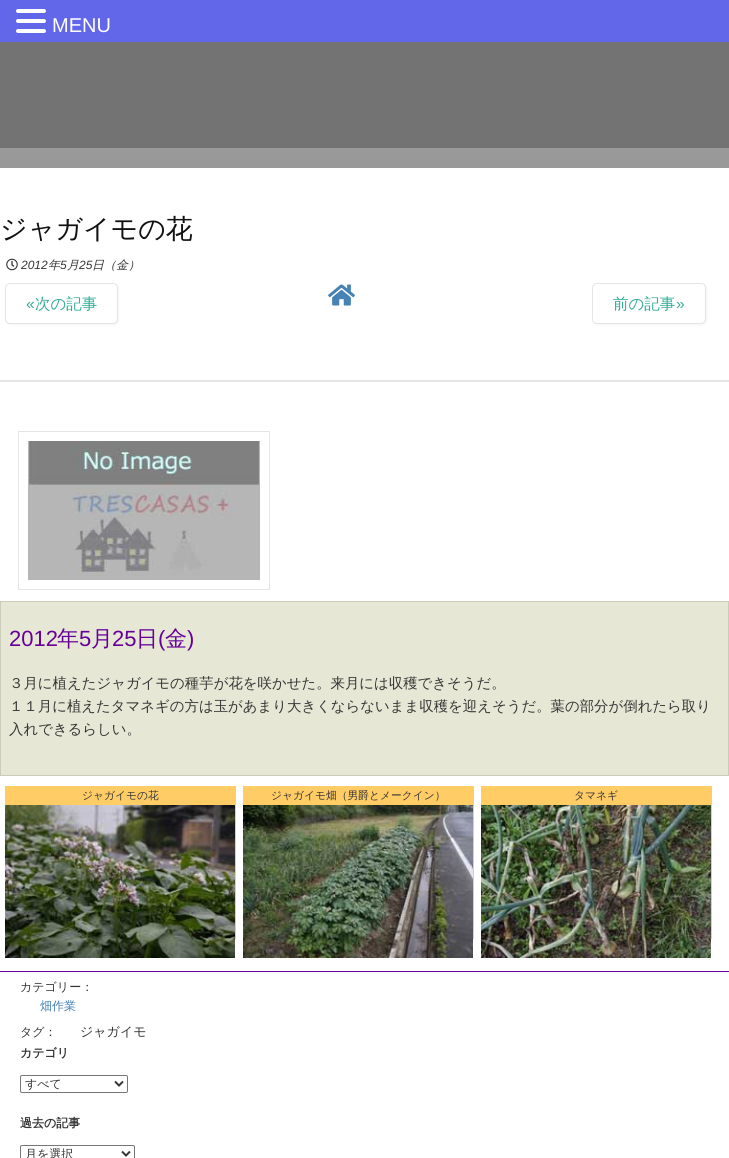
#include <cairo/cairo.h>
#include <math.h>
#include <stddef.h>

typedef struct { double x, y; const char *s; } line_t;
typedef struct { double x, y, w, h; unsigned color; } box_t;
static cairo_t *cr;

static void rgb(unsigned color)
{
	cairo_set_source_rgb(cr, (color >> 16) / 255.0, (color >> 8 & 255) / 255.0, (color & 255) / 255.0);
}

static void rrect(double x, double y, double w, double h, double r)
{
	cairo_new_sub_path(cr);
	cairo_arc(cr, x + w - r, y + h - r, r, 0, M_PI / 2);
	cairo_arc(cr, x + r, y + h - r, r, M_PI / 2, M_PI);
	cairo_arc(cr, x + r, y + r, r, M_PI, 1.5 * M_PI);
	cairo_arc(cr, x + w - r, y + r, r, 1.5 * M_PI, 2 * M_PI);
	cairo_close_path(cr);
}

static void soft_shadow(double x, double y, double w, double h, double r, double blur, double alpha)
{
	cairo_push_group_with_content(cr, CAIRO_CONTENT_ALPHA);
	cairo_set_operator(cr, CAIRO_OPERATOR_SOURCE);
	for (int i = 15; i >= -15 && fmin(w, h) + blur * i / 3 > 0; i -= 2) {
		double e = blur * i / 6;
		cairo_set_source_rgba(cr, 0, 0, 0, alpha * erfc((i - 1) / 8.5) / 2);
		rrect(x - e, y - e, w + 2 * e, h + 2 * e, fmax(0, fmin(r + e + blur * .6, fmin(w, h) / 2 + e)));
		cairo_fill(cr);
	}
	cairo_pattern_t *soft = cairo_pop_group(cr);
	cairo_mask(cr, soft);
	cairo_pattern_destroy(soft);
}

static void image(const char *path, double x, double y, double w, double h)
{
	cairo_surface_t *image = cairo_image_surface_create_from_png(path);
	cairo_save(cr);
	cairo_set_source_surface(cr, image, x, y);
	cairo_rectangle(cr, x, y, w, h);
	cairo_fill(cr);
	cairo_restore(cr);
	cairo_surface_destroy(image);
}

int main(void) {
	cairo_surface_t *surface = cairo_image_surface_create(CAIRO_FORMAT_RGB24, 729, 1158);
	cr = cairo_create(surface);
	cairo_font_options_t *options = cairo_font_options_create();
	cairo_font_options_set_hint_metrics(options, CAIRO_HINT_METRICS_OFF);
	cairo_font_options_set_hint_style(options, CAIRO_HINT_STYLE_NONE);
	cairo_set_font_options(cr, options);
	cairo_set_miter_limit(cr, 4);
	rgb(0x999999);
	cairo_paint(cr);
	rgb(0x6267ea);
	cairo_rectangle(cr, 0, 0, 729, 42);
	cairo_fill(cr);
	rgb(0xffffff);
	rrect(16, 9, 30, 4, 2);
	cairo_fill(cr);
	rrect(16, 19, 30, 4, 2);
	cairo_fill(cr);
	rrect(16, 29, 30, 4, 2);
	cairo_fill(cr);
	{
		static const box_t items[] = {
			{0, 42, 729, 106, 0x737373},
			{0, 168, 729, 990, 0xffffff},
			{0, 380, 729, 2, 0xe5e5e5},
		};
		for (size_t i = 0; i < sizeof items / sizeof *items; i++) {
			rgb(items[i].color);
			cairo_rectangle(cr, items[i].x, items[i].y, items[i].w, items[i].h);
			cairo_fill(cr);
		}
	}
	image("img/1.png", 6, 258, 12, 13);
	rgb(0xf5f5f5);
	soft_shadow(6, 284, 113, 41, 5, 1, 1);
	rgb(0xffffff);
	rrect(5.5, 283.5, 112, 40, 4.5);
	cairo_fill_preserve(cr);
	rgb(0xe5e5e5);
	cairo_set_line_width(cr, 1);
	cairo_stroke(cr);
	image("img/2.png", 328, 284, 27, 22);
	rgb(0xf5f5f5);
	soft_shadow(593, 284, 114, 41, 5, 1, 1);
	rgb(0xffffff);
	rrect(592.5, 283.5, 113, 40, 4.5);
	cairo_fill_preserve(cr);
	rgb(0xe5e5e5);
	cairo_stroke(cr);
	cairo_rectangle(cr, 18.5, 431.5, 251, 158);
	cairo_stroke(cr);
	image("img/3.png", 28, 441, 232, 139);
	rgb(0xe7e7d6);
	cairo_rectangle(cr, 0.5, 601.5, 728, 174);
	cairo_fill_preserve(cr);
	rgb(0xccccbb);
	cairo_stroke(cr);
	rgb(0xffcc66);
	cairo_rectangle(cr, 5, 786, 231, 153);
	cairo_fill(cr);
	image("img/4.png", 5, 805, 230, 153);
	cairo_rectangle(cr, 243, 786, 231, 153);
	cairo_fill(cr);
	image("img/5.png", 243, 805, 230, 153);
	cairo_rectangle(cr, 481, 786, 231, 153);
	cairo_fill(cr);
	image("img/6.png", 481, 805, 230, 153);
	rgb(0x660099);
	cairo_rectangle(cr, 0, 971, 729, 1);
	cairo_fill(cr);
	rrect(20.5, 1075.5, 107, 17, 1.5);
	rgb(0x767676);
	cairo_stroke(cr);
	cairo_new_path(cr);
	cairo_move_to(cr, 115, 1081.5);
	cairo_line_to(cr, 119, 1085.5);
	cairo_line_to(cr, 123, 1081.5);
	rgb(0x353535);
	cairo_set_line_width(cr, 2);
	cairo_stroke(cr);
	rrect(20.5, 1145.5, 114, 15, 1.5);
	rgb(0x767676);
	cairo_set_line_width(cr, 1);
	cairo_stroke(cr);
	cairo_new_path(cr);
	cairo_move_to(cr, 122, 1151.5);
	cairo_line_to(cr, 126, 1155.5);
	cairo_line_to(cr, 130, 1151.5);
	rgb(0x353535);
	cairo_set_line_width(cr, 2);
	cairo_stroke(cr);
	cairo_select_font_face(cr, "Liberation Sans", CAIRO_FONT_SLANT_NORMAL, CAIRO_FONT_WEIGHT_NORMAL);
	cairo_set_font_size(cr, 20);
	rgb(0xffffff);
	cairo_move_to(cr, 52, 32);
	cairo_show_text(cr, "MENU");
	cairo_select_font_face(cr, "WenQuanYi Zen Hei Medium", CAIRO_FONT_SLANT_NORMAL, CAIRO_FONT_WEIGHT_NORMAL);
	cairo_set_font_size(cr, 27);
	rgb(0x111111);
	cairo_move_to(cr, 0, 238);
	cairo_show_text(cr, "ジャガイモの花");
	cairo_select_font_face(cr, "Liberation Sans", CAIRO_FONT_SLANT_ITALIC, CAIRO_FONT_WEIGHT_NORMAL);
	cairo_set_font_size(cr, 12);
	rgb(0x353535);
	cairo_move_to(cr, 21, 269);
	cairo_show_text(cr, "2012");
	cairo_select_font_face(cr, "WenQuanYi Zen Hei Medium", CAIRO_FONT_SLANT_ITALIC, CAIRO_FONT_WEIGHT_NORMAL);
	cairo_move_to(cr, 48, 269);
	cairo_show_text(cr, "年");
	cairo_select_font_face(cr, "Liberation Sans", CAIRO_FONT_SLANT_ITALIC, CAIRO_FONT_WEIGHT_NORMAL);
	cairo_move_to(cr, 60, 269);
	cairo_show_text(cr, "5");
	cairo_select_font_face(cr, "WenQuanYi Zen Hei Medium", CAIRO_FONT_SLANT_ITALIC, CAIRO_FONT_WEIGHT_NORMAL);
	cairo_move_to(cr, 67, 269);
	cairo_show_text(cr, "月");
	cairo_select_font_face(cr, "Liberation Sans", CAIRO_FONT_SLANT_ITALIC, CAIRO_FONT_WEIGHT_NORMAL);
	cairo_move_to(cr, 79, 269);
	cairo_show_text(cr, "25");
	cairo_select_font_face(cr, "WenQuanYi Zen Hei Medium", CAIRO_FONT_SLANT_ITALIC, CAIRO_FONT_WEIGHT_NORMAL);
	cairo_move_to(cr, 92, 269);
	cairo_show_text(cr, "日（金）");
	cairo_select_font_face(cr, "Liberation Sans", CAIRO_FONT_SLANT_NORMAL, CAIRO_FONT_WEIGHT_NORMAL);
	cairo_set_font_size(cr, 15.5);
	rgb(0x34ac98);
	cairo_move_to(cr, 26, 309);
	cairo_show_text(cr, "«");
	cairo_select_font_face(cr, "WenQuanYi Zen Hei Medium", CAIRO_FONT_SLANT_NORMAL, CAIRO_FONT_WEIGHT_NORMAL);
	cairo_move_to(cr, 35, 309);
	cairo_show_text(cr, "次の記事");
	cairo_move_to(cr, 613, 309);
	cairo_show_text(cr, "前の記事");
	cairo_select_font_face(cr, "Liberation Sans", CAIRO_FONT_SLANT_NORMAL, CAIRO_FONT_WEIGHT_NORMAL);
	cairo_move_to(cr, 676, 309);
	cairo_show_text(cr, "»");
	cairo_set_font_size(cr, 22);
	rgb(0x660099);
	cairo_move_to(cr, 9, 646);
	cairo_show_text(cr, "2012");
	cairo_select_font_face(cr, "WenQuanYi Zen Hei Medium", CAIRO_FONT_SLANT_NORMAL, CAIRO_FONT_WEIGHT_NORMAL);
	cairo_move_to(cr, 57, 646);
	cairo_show_text(cr, "年");
	cairo_select_font_face(cr, "Liberation Sans", CAIRO_FONT_SLANT_NORMAL, CAIRO_FONT_WEIGHT_NORMAL);
	cairo_move_to(cr, 79, 646);
	cairo_show_text(cr, "5");
	cairo_select_font_face(cr, "WenQuanYi Zen Hei Medium", CAIRO_FONT_SLANT_NORMAL, CAIRO_FONT_WEIGHT_NORMAL);
	cairo_move_to(cr, 91, 646);
	cairo_show_text(cr, "月");
	cairo_select_font_face(cr, "Liberation Sans", CAIRO_FONT_SLANT_NORMAL, CAIRO_FONT_WEIGHT_NORMAL);
	cairo_move_to(cr, 112, 646);
	cairo_show_text(cr, "25");
	cairo_select_font_face(cr, "WenQuanYi Zen Hei Medium", CAIRO_FONT_SLANT_NORMAL, CAIRO_FONT_WEIGHT_NORMAL);
	cairo_move_to(cr, 136, 646);
	cairo_show_text(cr, "日");
	cairo_select_font_face(cr, "Liberation Sans", CAIRO_FONT_SLANT_NORMAL, CAIRO_FONT_WEIGHT_NORMAL);
	cairo_move_to(cr, 158, 646);
	cairo_show_text(cr, "(");
	cairo_select_font_face(cr, "WenQuanYi Zen Hei Medium", CAIRO_FONT_SLANT_NORMAL, CAIRO_FONT_WEIGHT_NORMAL);
	cairo_move_to(cr, 165, 646);
	cairo_show_text(cr, "金");
	cairo_select_font_face(cr, "Liberation Sans", CAIRO_FONT_SLANT_NORMAL, CAIRO_FONT_WEIGHT_NORMAL);
	cairo_move_to(cr, 187, 646);
	cairo_show_text(cr, ")");
	cairo_select_font_face(cr, "WenQuanYi Zen Hei Medium", CAIRO_FONT_SLANT_NORMAL, CAIRO_FONT_WEIGHT_NORMAL);
	cairo_set_font_size(cr, 14.4);
	rgb(0x353535);
	{
		static const line_t items[] = {
			{9, 688, "３月に植えたジャガイモの種芋が花を咲かせた。来月には収穫できそうだ。"},
			{9, 711, "１１月に植えたタマネギの方は玉があまり大きくならないまま収穫を迎えそうだ。葉の部分が倒れたら取り"},
			{9, 734, "入れできるらしい。"},
		};
		for (size_t i = 0; i < sizeof items / sizeof *items; i++) {
			cairo_move_to(cr, items[i].x, items[i].y);
			cairo_show_text(cr, items[i].s);
		}
	}
	cairo_set_font_size(cr, 10.75);
	{
		static const line_t items[] = {
			{82, 799, "ジャガイモの花"},
			{271, 799, "ジャガイモ畑（男爵とメークイン）"},
			{574, 799, "タマネギ"},
		};
		for (size_t i = 0; i < sizeof items / sizeof *items; i++) {
			cairo_move_to(cr, items[i].x, items[i].y);
			cairo_show_text(cr, items[i].s);
		}
	}
	cairo_set_font_size(cr, 12);
	cairo_move_to(cr, 20, 991);
	cairo_show_text(cr, "カテゴリー：");
	rgb(0x4682b4);
	cairo_move_to(cr, 40, 1010);
	cairo_show_text(cr, "畑作業");
	rgb(0x353535);
	cairo_move_to(cr, 20, 1036);
	cairo_show_text(cr, "タグ：");
	cairo_set_font_size(cr, 13);
	cairo_move_to(cr, 80, 1036);
	cairo_show_text(cr, "ジャガイモ");
	cairo_select_font_face(cr, "WenQuanYi Zen Hei", CAIRO_FONT_SLANT_NORMAL, CAIRO_FONT_WEIGHT_BOLD);
	cairo_set_font_size(cr, 12);
	cairo_move_to(cr, 20, 1057);
	cairo_show_text(cr, "カテゴリ");
	cairo_select_font_face(cr, "WenQuanYi Zen Hei Medium", CAIRO_FONT_SLANT_NORMAL, CAIRO_FONT_WEIGHT_NORMAL);
	cairo_move_to(cr, 25, 1088);
	cairo_show_text(cr, "すべて");
	cairo_select_font_face(cr, "WenQuanYi Zen Hei", CAIRO_FONT_SLANT_NORMAL, CAIRO_FONT_WEIGHT_BOLD);
	cairo_move_to(cr, 20, 1127);
	cairo_show_text(cr, "過去の記事");
	cairo_select_font_face(cr, "WenQuanYi Zen Hei Medium", CAIRO_FONT_SLANT_NORMAL, CAIRO_FONT_WEIGHT_NORMAL);
	cairo_move_to(cr, 25, 1158);
	cairo_show_text(cr, "月を選択");
	cairo_surface_write_to_png(surface, "page.png");
	cairo_font_options_destroy(options);
	cairo_destroy(cr);
	cairo_surface_destroy(surface);
	return 0;
}
